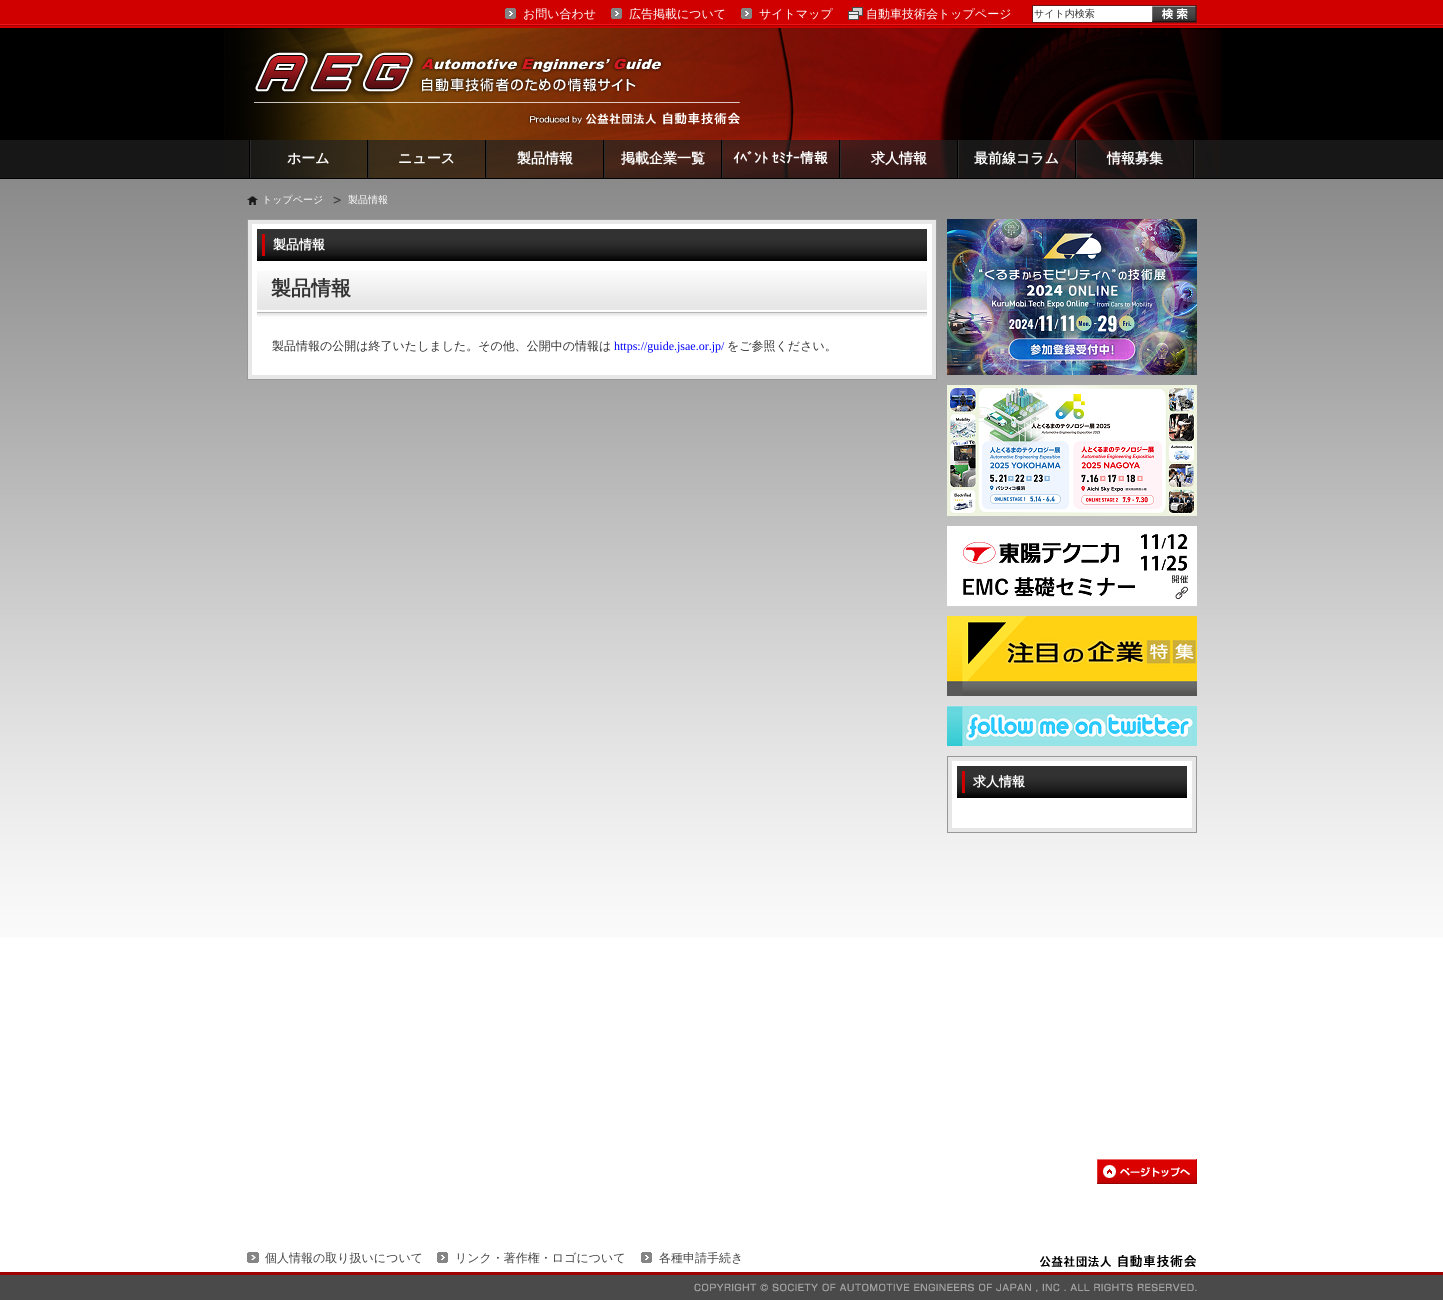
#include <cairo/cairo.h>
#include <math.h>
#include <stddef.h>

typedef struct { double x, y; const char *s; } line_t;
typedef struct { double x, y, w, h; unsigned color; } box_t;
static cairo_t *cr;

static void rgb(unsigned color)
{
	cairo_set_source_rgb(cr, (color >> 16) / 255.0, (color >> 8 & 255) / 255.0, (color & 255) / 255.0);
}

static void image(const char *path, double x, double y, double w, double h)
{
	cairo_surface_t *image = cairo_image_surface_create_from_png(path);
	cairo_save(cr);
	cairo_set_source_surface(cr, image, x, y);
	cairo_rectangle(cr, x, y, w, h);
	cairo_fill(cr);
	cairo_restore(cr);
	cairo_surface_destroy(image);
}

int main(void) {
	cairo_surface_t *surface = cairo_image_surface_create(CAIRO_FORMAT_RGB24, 1443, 1300);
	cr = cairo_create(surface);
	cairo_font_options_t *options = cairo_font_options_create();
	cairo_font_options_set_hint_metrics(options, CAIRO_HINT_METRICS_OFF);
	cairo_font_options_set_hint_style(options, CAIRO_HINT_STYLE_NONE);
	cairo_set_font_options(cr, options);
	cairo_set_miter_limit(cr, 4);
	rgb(0xffffff);
	cairo_paint(cr);
	image("img/1.png", 0, 179, 1443, 758);
	rgb(0xd00000);
	cairo_rectangle(cr, 0, 0, 1443, 28);
	cairo_fill(cr);
	image("img/2.png", 0, 24, 1443, 2);
	image("img/3.png", 505, 8, 11, 11);
	image("img/3.png", 611, 8, 11, 11);
	image("img/3.png", 741, 8, 11, 11);
	image("img/4.png", 848, 7, 15, 13);
	{
		static const box_t items[] = {
			{1033, 6, 119, 16, 0xffffff},
			{1032, 5, 120, 1, 0x681717},
			{1032, 22, 120, 1, 0x681717},
			{1032, 5, 1, 18, 0x681717},
		};
		for (size_t i = 0; i < sizeof items / sizeof *items; i++) {
			rgb(items[i].color);
			cairo_rectangle(cr, items[i].x, items[i].y, items[i].w, items[i].h);
			cairo_fill(cr);
		}
	}
	image("img/5.png", 1152, 5, 45, 18);
	rgb(0x000000);
	cairo_rectangle(cr, 0, 28, 1443, 151);
	cairo_fill(cr);
	image("img/6.png", 224, 28, 998, 150);
	cairo_set_source_rgba(cr, 0.129, 0.129, 0.129, 0.7);
	cairo_rectangle(cr, 0, 140, 1443, 38);
	cairo_fill(cr);
	rgb(0x2d2c2c);
	cairo_rectangle(cr, 1194, 140, 1, 38);
	cairo_fill(cr);
	rgb(0x000000);
	cairo_rectangle(cr, 249, 140, 1, 38);
	cairo_fill(cr);
	cairo_rectangle(cr, 367, 140, 1, 38);
	cairo_fill(cr);
	rgb(0x2d2c2c);
	cairo_rectangle(cr, 250, 140, 1, 38);
	cairo_fill(cr);
	rgb(0x000000);
	cairo_rectangle(cr, 485, 140, 1, 38);
	cairo_fill(cr);
	rgb(0x2d2c2c);
	cairo_rectangle(cr, 368, 140, 1, 38);
	cairo_fill(cr);
	rgb(0x000000);
	cairo_rectangle(cr, 603, 140, 1, 38);
	cairo_fill(cr);
	rgb(0x2d2c2c);
	cairo_rectangle(cr, 486, 140, 1, 38);
	cairo_fill(cr);
	rgb(0x000000);
	cairo_rectangle(cr, 721, 140, 1, 38);
	cairo_fill(cr);
	rgb(0x2d2c2c);
	cairo_rectangle(cr, 604, 140, 1, 38);
	cairo_fill(cr);
	rgb(0x000000);
	cairo_rectangle(cr, 839, 140, 1, 38);
	cairo_fill(cr);
	rgb(0x2d2c2c);
	cairo_rectangle(cr, 722, 140, 1, 38);
	cairo_fill(cr);
	rgb(0x000000);
	cairo_rectangle(cr, 957, 140, 1, 38);
	cairo_fill(cr);
	rgb(0x2d2c2c);
	cairo_rectangle(cr, 840, 140, 1, 38);
	cairo_fill(cr);
	rgb(0x000000);
	cairo_rectangle(cr, 1075, 140, 1, 38);
	cairo_fill(cr);
	rgb(0x2d2c2c);
	cairo_rectangle(cr, 958, 140, 1, 38);
	cairo_fill(cr);
	rgb(0x000000);
	cairo_rectangle(cr, 1193, 140, 1, 38);
	cairo_fill(cr);
	rgb(0x2d2c2c);
	cairo_rectangle(cr, 1076, 140, 1, 38);
	cairo_fill(cr);
	image("img/7.png", 247, 196, 11, 9);
	image("img/8.png", 333, 196, 8, 8);
	cairo_rectangle(cr, 247.5, 219.5, 689, 160);
	rgb(0x989898);
	cairo_set_line_width(cr, 1);
	cairo_stroke(cr);
	rgb(0xffffff);
	cairo_rectangle(cr, 250, 222, 684, 155);
	cairo_fill_preserve(cr);
	rgb(0xe7e7e7);
	cairo_set_line_width(cr, 4);
	cairo_stroke(cr);
	image("img/9.png", 257, 229, 670, 32);
	image("img/10.png", 257, 271, 670, 46);
	image("img/11.png", 947, 219, 250, 156);
	image("img/12.png", 947, 385, 250, 131);
	image("img/13.png", 947, 526, 250, 80);
	image("img/14.png", 947, 616, 250, 80);
	image("img/15.png", 947, 706, 250, 40);
	cairo_rectangle(cr, 947.5, 756.5, 249, 76);
	rgb(0x989898);
	cairo_set_line_width(cr, 1);
	cairo_stroke(cr);
	rgb(0xffffff);
	cairo_rectangle(cr, 950, 759, 244, 71);
	cairo_fill_preserve(cr);
	rgb(0xe7e7e7);
	cairo_set_line_width(cr, 4);
	cairo_stroke(cr);
	image("img/16.png", 957, 766, 230, 32);
	image("img/17.png", 0, 1272, 1443, 28);
	image("img/18.png", 1097, 1159, 100, 25);
	image("img/19.png", 247, 1252, 12, 11);
	image("img/20.png", 437, 1252, 11, 11);
	image("img/20.png", 641, 1252, 11, 11);
	image("img/21.png", 1040, 1255, 157, 13);
	image("img/22.png", 694, 1283, 503, 9);
	cairo_select_font_face(cr, "WenQuanYi Zen Hei Medium", CAIRO_FONT_SLANT_NORMAL, CAIRO_FONT_WEIGHT_NORMAL);
	cairo_set_font_size(cr, 12);
	rgb(0xffffff);
	{
		static const line_t items[] = {
			{523, 18, "お問い合わせ"},
			{629, 18, "広告掲載について"},
			{759, 18, "サイトマップ"},
			{866, 18, "自動車技術会トップページ"},
		};
		for (size_t i = 0; i < sizeof items / sizeof *items; i++) {
			cairo_move_to(cr, items[i].x, items[i].y);
			cairo_show_text(cr, items[i].s);
		}
	}
	cairo_set_font_size(cr, 10);
	rgb(0x333333);
	cairo_move_to(cr, 1034, 17);
	cairo_show_text(cr, "サイト内検索");
	cairo_select_font_face(cr, "WenQuanYi Zen Hei", CAIRO_FONT_SLANT_NORMAL, CAIRO_FONT_WEIGHT_BOLD);
	cairo_set_font_size(cr, 14);
	rgb(0xffffff);
	{
		static const line_t items[] = {
			{287, 163, "ホーム"},
			{398, 163, "ニュース"},
			{517, 163, "製品情報"},
			{621, 163, "掲載企業一覧"},
		};
		for (size_t i = 0; i < sizeof items / sizeof *items; i++) {
			cairo_move_to(cr, items[i].x, items[i].y);
			cairo_show_text(cr, items[i].s);
		}
	}
	cairo_select_font_face(cr, "IPAPGothic", CAIRO_FONT_SLANT_NORMAL, CAIRO_FONT_WEIGHT_BOLD);
	cairo_move_to(cr, 733, 163);
	cairo_show_text(cr, "ｲﾍﾞﾝﾄ ｾﾐﾅｰ情報");
	cairo_select_font_face(cr, "WenQuanYi Zen Hei", CAIRO_FONT_SLANT_NORMAL, CAIRO_FONT_WEIGHT_BOLD);
	{
		static const line_t items[] = {
			{871, 163, "求人情報"},
			{974, 163, "最前線コラム"},
			{1107, 163, "情報募集"},
		};
		for (size_t i = 0; i < sizeof items / sizeof *items; i++) {
			cairo_move_to(cr, items[i].x, items[i].y);
			cairo_show_text(cr, items[i].s);
		}
	}
	cairo_select_font_face(cr, "WenQuanYi Zen Hei Medium", CAIRO_FONT_SLANT_NORMAL, CAIRO_FONT_WEIGHT_NORMAL);
	cairo_set_font_size(cr, 10);
	cairo_move_to(cr, 262, 203);
	cairo_show_text(cr, "トップページ");
	cairo_move_to(cr, 348, 203);
	cairo_show_text(cr, "製品情報");
	cairo_select_font_face(cr, "WenQuanYi Zen Hei", CAIRO_FONT_SLANT_NORMAL, CAIRO_FONT_WEIGHT_BOLD);
	cairo_set_font_size(cr, 13);
	cairo_move_to(cr, 273, 249);
	cairo_show_text(cr, "製品情報");
	cairo_set_font_size(cr, 20);
	rgb(0x333333);
	cairo_move_to(cr, 271, 295);
	cairo_show_text(cr, "製品情報");
	cairo_select_font_face(cr, "WenQuanYi Zen Hei Medium", CAIRO_FONT_SLANT_NORMAL, CAIRO_FONT_WEIGHT_NORMAL);
	cairo_set_font_size(cr, 12);
	cairo_move_to(cr, 272, 350);
	cairo_show_text(cr, "製品情報の公開は終了いたしました。その他、公開中の情報は");
	cairo_select_font_face(cr, "Liberation Serif", CAIRO_FONT_SLANT_NORMAL, CAIRO_FONT_WEIGHT_NORMAL);
	rgb(0x0000ff);
	cairo_move_to(cr, 614, 350);
	cairo_show_text(cr, "https://guide.jsae.or.jp/");
	cairo_select_font_face(cr, "WenQuanYi Zen Hei Medium", CAIRO_FONT_SLANT_NORMAL, CAIRO_FONT_WEIGHT_NORMAL);
	rgb(0x333333);
	cairo_move_to(cr, 727, 350);
	cairo_show_text(cr, "をご参照ください。");
	cairo_select_font_face(cr, "WenQuanYi Zen Hei", CAIRO_FONT_SLANT_NORMAL, CAIRO_FONT_WEIGHT_BOLD);
	cairo_set_font_size(cr, 13);
	rgb(0xffffff);
	cairo_move_to(cr, 973, 786);
	cairo_show_text(cr, "求人情報");
	cairo_select_font_face(cr, "WenQuanYi Zen Hei Medium", CAIRO_FONT_SLANT_NORMAL, CAIRO_FONT_WEIGHT_NORMAL);
	cairo_set_font_size(cr, 12);
	rgb(0x444444);
	{
		static const line_t items[] = {
			{265, 1262, "個人情報の取り扱いについて"},
			{455, 1262, "リンク・著作権・ロゴについて"},
			{659, 1262, "各種申請手続き"},
		};
		for (size_t i = 0; i < sizeof items / sizeof *items; i++) {
			cairo_move_to(cr, items[i].x, items[i].y);
			cairo_show_text(cr, items[i].s);
		}
	}
	cairo_surface_write_to_png(surface, "page.png");
	cairo_font_options_destroy(options);
	cairo_destroy(cr);
	cairo_surface_destroy(surface);
	return 0;
}
